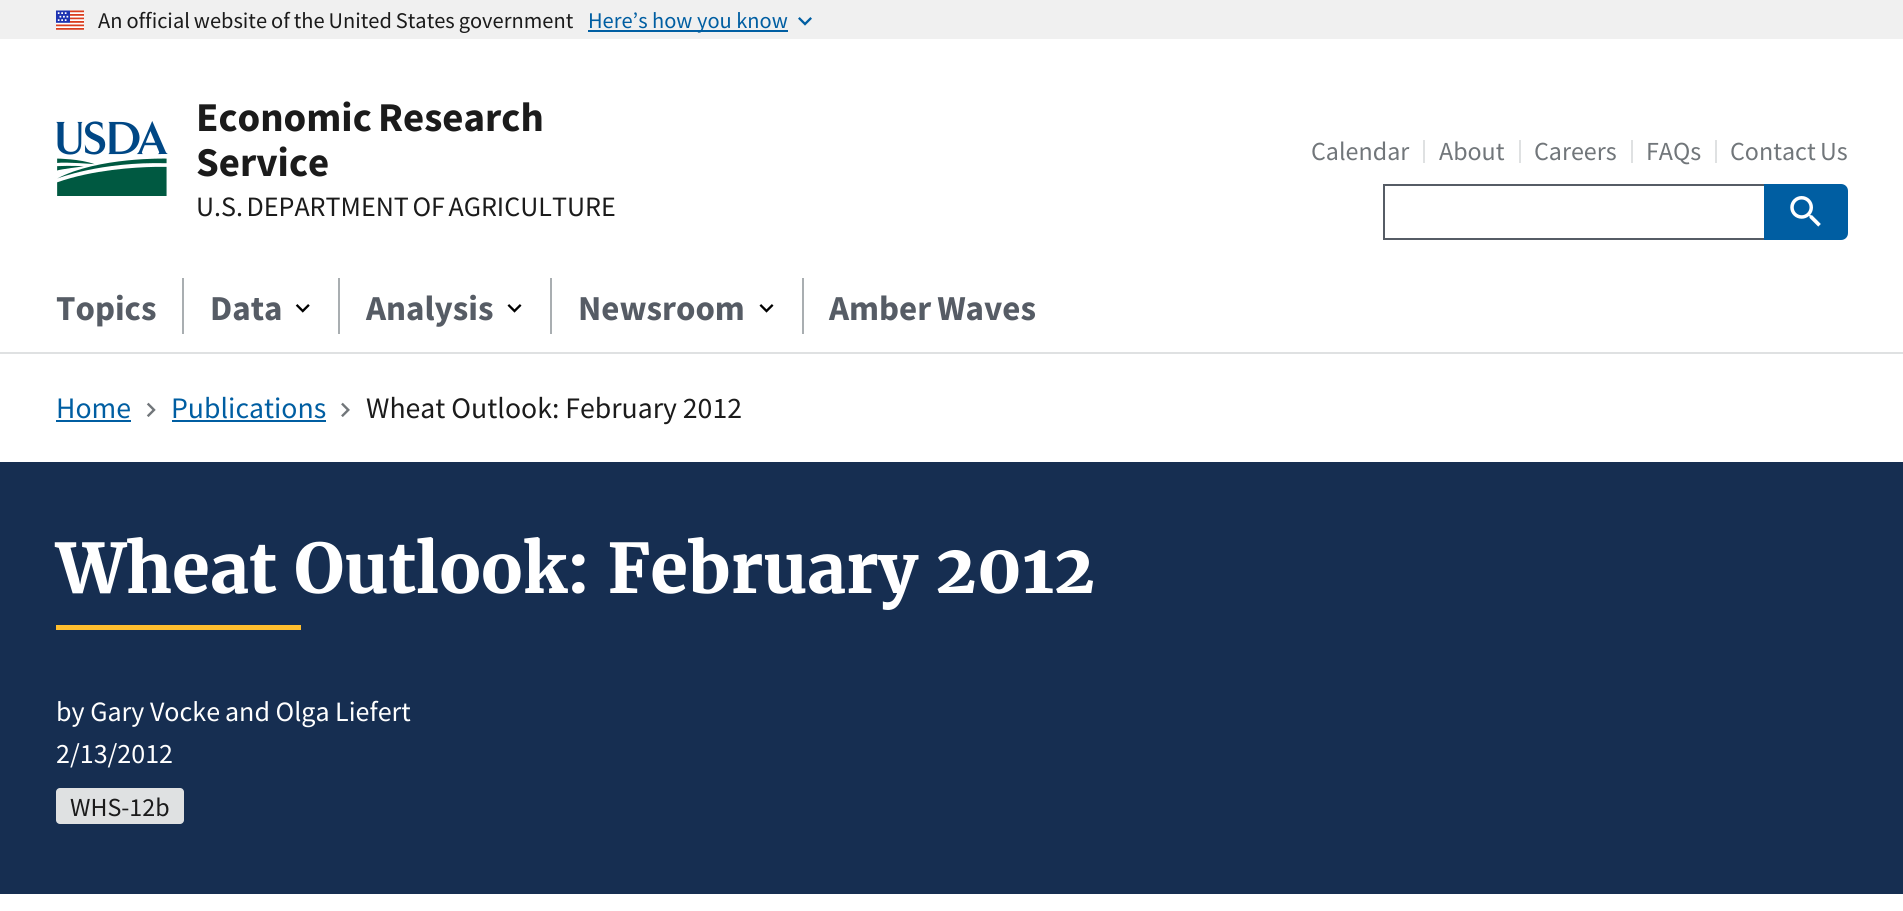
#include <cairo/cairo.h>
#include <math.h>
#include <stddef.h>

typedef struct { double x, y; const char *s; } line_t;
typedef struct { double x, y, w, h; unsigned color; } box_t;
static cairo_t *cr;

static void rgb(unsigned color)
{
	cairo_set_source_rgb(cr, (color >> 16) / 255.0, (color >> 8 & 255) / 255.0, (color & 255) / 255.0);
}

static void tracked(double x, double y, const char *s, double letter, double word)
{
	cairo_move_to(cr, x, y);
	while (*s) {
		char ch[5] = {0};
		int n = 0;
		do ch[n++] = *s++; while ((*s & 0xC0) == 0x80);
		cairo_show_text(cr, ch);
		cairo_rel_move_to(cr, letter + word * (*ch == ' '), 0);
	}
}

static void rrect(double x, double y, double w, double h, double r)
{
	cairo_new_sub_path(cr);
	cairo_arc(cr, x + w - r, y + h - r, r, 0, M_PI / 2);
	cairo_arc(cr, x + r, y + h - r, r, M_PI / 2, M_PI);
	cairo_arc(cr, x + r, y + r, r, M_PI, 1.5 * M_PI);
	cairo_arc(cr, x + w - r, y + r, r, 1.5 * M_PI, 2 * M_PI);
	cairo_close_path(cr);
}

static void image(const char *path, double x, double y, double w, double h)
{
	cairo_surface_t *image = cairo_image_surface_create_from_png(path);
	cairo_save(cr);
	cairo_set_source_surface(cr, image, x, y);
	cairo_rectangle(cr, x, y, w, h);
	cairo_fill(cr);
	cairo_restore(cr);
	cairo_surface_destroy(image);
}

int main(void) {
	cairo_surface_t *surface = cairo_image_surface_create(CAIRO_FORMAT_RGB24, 1903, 911);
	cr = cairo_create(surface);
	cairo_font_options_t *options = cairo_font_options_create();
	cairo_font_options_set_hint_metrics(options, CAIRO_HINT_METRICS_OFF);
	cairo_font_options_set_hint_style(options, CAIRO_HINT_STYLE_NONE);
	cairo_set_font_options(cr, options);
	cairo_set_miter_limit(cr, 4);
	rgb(0xffffff);
	cairo_paint(cr);
	rgb(0xf0f0f0);
	cairo_rectangle(cr, 0, 0, 1903, 39);
	cairo_fill(cr);
	image("img/1.png", 56, 10, 28, 20);
	rgb(0x005ea2);
	cairo_rectangle(cr, 588, 30, 200, 2);
	cairo_fill(cr);
	image("img/2.png", 798, 17, 14, 9);
	image("img/3.png", 56, 121, 112, 75);
	{
		static const box_t items[] = {
			{1423, 140, 2, 23, 0xdfe1e2},
			{1519, 140, 2, 23, 0xdfe1e2},
			{1631, 140, 2, 23, 0xdfe1e2},
			{1715, 140, 2, 23, 0xdfe1e2},
			{1383, 184, 381, 2, 0x565c65},
			{1383, 238, 381, 2, 0x565c65},
			{1383, 184, 2, 56, 0x565c65},
		};
		for (size_t i = 0; i < sizeof items / sizeof *items; i++) {
			rgb(items[i].color);
			cairo_rectangle(cr, items[i].x, items[i].y, items[i].w, items[i].h);
			cairo_fill(cr);
		}
	}
	rgb(0x005ea2);
	cairo_new_path(cr);
	cairo_move_to(cr, 1764, 184);
	cairo_line_to(cr, 1841, 184);
	cairo_curve_to(cr, 1845, 184, 1848, 187, 1848, 191);
	cairo_line_to(cr, 1848, 233);
	cairo_curve_to(cr, 1848, 237, 1845, 240, 1841, 240);
	cairo_line_to(cr, 1764, 240);
	cairo_close_path(cr);
	cairo_fill(cr);
	image("img/4.png", 1790, 196, 31, 31);
	rgb(0xa9aeb1);
	cairo_rectangle(cr, 182, 278, 2, 56);
	cairo_fill(cr);
	image("img/5.png", 295, 304, 15, 9);
	cairo_rectangle(cr, 338, 278, 2, 56);
	cairo_fill(cr);
	image("img/6.png", 507, 304, 15, 9);
	cairo_rectangle(cr, 550, 278, 2, 56);
	cairo_fill(cr);
	image("img/6.png", 759, 304, 15, 9);
	{
		static const box_t items[] = {
			{802, 278, 2, 56, 0xa9aeb1},
			{0, 352, 1903, 2, 0xdfe1e2},
			{56, 420, 75, 2, 0x005ea2},
		};
		for (size_t i = 0; i < sizeof items / sizeof *items; i++) {
			rgb(items[i].color);
			cairo_rectangle(cr, items[i].x, items[i].y, items[i].w, items[i].h);
			cairo_fill(cr);
		}
	}
	image("img/7.png", 146, 402, 10, 15);
	cairo_rectangle(cr, 172, 420, 154, 2);
	cairo_fill(cr);
	image("img/8.png", 341, 402, 9, 15);
	rgb(0x162e51);
	cairo_rectangle(cr, 0, 462, 1903, 432);
	cairo_fill(cr);
	rgb(0xffbe2e);
	cairo_rectangle(cr, 56, 625, 245, 5);
	cairo_fill(cr);
	rgb(0xdfe1e2);
	rrect(56, 788, 128, 36, 4);
	cairo_fill(cr);
	cairo_select_font_face(cr, "Source Sans Pro", CAIRO_FONT_SLANT_NORMAL, CAIRO_FONT_WEIGHT_NORMAL);
	cairo_set_font_size(cr, 22.4);
	rgb(0x1b1b1b);
	tracked(98, 28, "An official website of the United States government", 0, -0.5);
	rgb(0x005ea2);
	cairo_move_to(cr, 588, 28);
	cairo_show_text(cr, "Here’s how you know");
	cairo_select_font_face(cr, "Source Sans Pro", CAIRO_FONT_SLANT_NORMAL, CAIRO_FONT_WEIGHT_BOLD);
	cairo_set_font_size(cr, 40.9);
	rgb(0x1b1b1b);
	tracked(196, 131, "Economic Research", 0, -2);
	cairo_move_to(cr, 196, 176);
	cairo_show_text(cr, "Service");
	cairo_select_font_face(cr, "Source Sans Pro", CAIRO_FONT_SLANT_NORMAL, CAIRO_FONT_WEIGHT_NORMAL);
	cairo_set_font_size(cr, 28);
	tracked(196, 216, "U.S. DEPARTMENT OF AGRICULTURE", 0, -2);
	cairo_set_font_size(cr, 26);
	rgb(0x71767a);
	{
		static const line_t items[] = {
			{1311, 160, "Calendar"},
			{1439, 160, "About"},
			{1534, 160, "Careers"},
			{1646, 160, "FAQs"},
		};
		for (size_t i = 0; i < sizeof items / sizeof *items; i++) {
			cairo_move_to(cr, items[i].x, items[i].y);
			cairo_show_text(cr, items[i].s);
		}
	}
	tracked(1730, 160, "Contact Us", 0, -1);
	cairo_select_font_face(cr, "Source Sans Pro", CAIRO_FONT_SLANT_NORMAL, CAIRO_FONT_WEIGHT_BOLD);
	cairo_set_font_size(cr, 35);
	rgb(0x565c65);
	{
		static const line_t items[] = {
			{56, 320, "Topics"},
			{210, 320, "Data"},
			{366, 320, "Analysis"},
			{578, 320, "Newsroom"},
		};
		for (size_t i = 0; i < sizeof items / sizeof *items; i++) {
			cairo_move_to(cr, items[i].x, items[i].y);
			cairo_show_text(cr, items[i].s);
		}
	}
	tracked(829, 320, "Amber Waves", 0, -1);
	cairo_select_font_face(cr, "Source Sans Pro", CAIRO_FONT_SLANT_NORMAL, CAIRO_FONT_WEIGHT_NORMAL);
	cairo_set_font_size(cr, 29.75);
	rgb(0x005ea2);
	cairo_move_to(cr, 56, 418);
	cairo_show_text(cr, "Home");
	cairo_move_to(cr, 171, 418);
	cairo_show_text(cr, "Publications");
	rgb(0x1b1b1b);
	cairo_move_to(cr, 366, 418);
	cairo_show_text(cr, "Wheat Outlook: February 2012");
	cairo_select_font_face(cr, "Merriweather", CAIRO_FONT_SLANT_NORMAL, CAIRO_FONT_WEIGHT_BOLD);
	cairo_set_font_size(cr, 68.3);
	rgb(0xffffff);
	cairo_move_to(cr, 56, 593);
	cairo_show_text(cr, "Wheat Outlook: February 2012");
	cairo_select_font_face(cr, "Source Sans Pro", CAIRO_FONT_SLANT_NORMAL, CAIRO_FONT_WEIGHT_NORMAL);
	cairo_set_font_size(cr, 28);
	{
		static const line_t items[] = {
			{56, 721, "by Gary Vocke"},
			{225, 721, "and Olga Liefert"},
			{56, 763, "2/13/2012"},
		};
		for (size_t i = 0; i < sizeof items / sizeof *items; i++) {
			cairo_move_to(cr, items[i].x, items[i].y);
			cairo_show_text(cr, items[i].s);
		}
	}
	cairo_set_font_size(cr, 26);
	rgb(0x1b1b1b);
	cairo_move_to(cr, 70, 816);
	cairo_show_text(cr, "WHS-12b");
	cairo_surface_write_to_png(surface, "page.png");
	cairo_font_options_destroy(options);
	cairo_destroy(cr);
	cairo_surface_destroy(surface);
	return 0;
}
